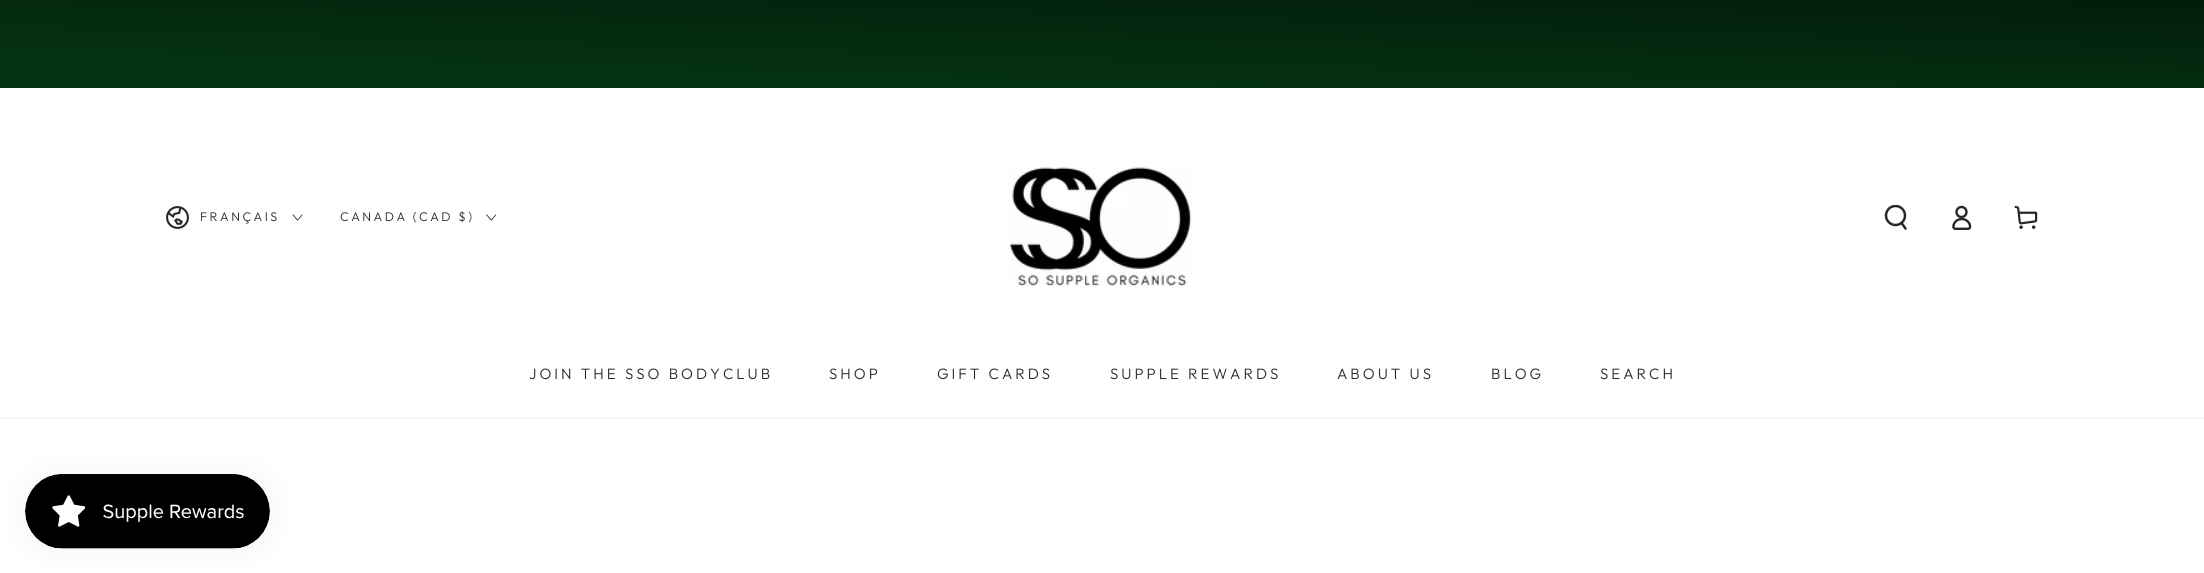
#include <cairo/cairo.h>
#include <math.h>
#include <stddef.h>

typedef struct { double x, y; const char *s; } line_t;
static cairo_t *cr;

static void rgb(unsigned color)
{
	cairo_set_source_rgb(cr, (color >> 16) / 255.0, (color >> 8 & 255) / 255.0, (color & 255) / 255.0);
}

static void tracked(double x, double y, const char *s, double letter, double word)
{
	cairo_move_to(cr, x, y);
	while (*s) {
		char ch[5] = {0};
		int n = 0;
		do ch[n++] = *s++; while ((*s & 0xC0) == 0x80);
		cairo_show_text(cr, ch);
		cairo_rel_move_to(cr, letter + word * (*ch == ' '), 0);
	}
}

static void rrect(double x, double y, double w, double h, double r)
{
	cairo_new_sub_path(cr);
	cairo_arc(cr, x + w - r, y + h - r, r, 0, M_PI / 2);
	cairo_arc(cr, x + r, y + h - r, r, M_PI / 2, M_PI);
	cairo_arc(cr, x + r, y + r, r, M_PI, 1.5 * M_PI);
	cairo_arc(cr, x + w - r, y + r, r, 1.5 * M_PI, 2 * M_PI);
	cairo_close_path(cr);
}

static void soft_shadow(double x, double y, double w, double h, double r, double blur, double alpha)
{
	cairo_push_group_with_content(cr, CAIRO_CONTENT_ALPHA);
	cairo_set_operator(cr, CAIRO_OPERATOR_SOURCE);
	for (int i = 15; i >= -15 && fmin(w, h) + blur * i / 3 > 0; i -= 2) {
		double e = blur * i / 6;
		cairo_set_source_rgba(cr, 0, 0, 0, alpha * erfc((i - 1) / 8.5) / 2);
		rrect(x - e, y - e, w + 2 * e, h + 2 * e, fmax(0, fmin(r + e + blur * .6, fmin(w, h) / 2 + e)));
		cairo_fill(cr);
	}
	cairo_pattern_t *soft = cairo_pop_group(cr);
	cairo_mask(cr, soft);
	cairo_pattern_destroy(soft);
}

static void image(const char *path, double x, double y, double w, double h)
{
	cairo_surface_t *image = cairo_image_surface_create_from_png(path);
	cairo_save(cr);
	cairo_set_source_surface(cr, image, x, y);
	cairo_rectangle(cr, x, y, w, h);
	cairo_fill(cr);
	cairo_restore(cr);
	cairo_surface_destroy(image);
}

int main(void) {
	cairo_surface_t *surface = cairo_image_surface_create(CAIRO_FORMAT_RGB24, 2204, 573);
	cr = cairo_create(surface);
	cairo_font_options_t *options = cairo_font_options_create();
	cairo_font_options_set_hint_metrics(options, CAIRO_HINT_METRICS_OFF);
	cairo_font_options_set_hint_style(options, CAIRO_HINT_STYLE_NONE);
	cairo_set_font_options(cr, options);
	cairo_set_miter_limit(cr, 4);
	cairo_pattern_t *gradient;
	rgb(0xffffff);
	cairo_paint(cr);
	gradient = cairo_pattern_create_linear(1100, 126, 1105, -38);
	cairo_pattern_add_color_stop_rgba(gradient, 0.24, 0.016, 0.196, 0.071, 1);
	cairo_pattern_add_color_stop_rgba(gradient, 1, 0.008, 0.11, 0.039, 1);
	cairo_set_source(cr, gradient);
	cairo_pattern_destroy(gradient);
	cairo_rectangle(cr, 0, 0, 2204, 88);
	cairo_fill(cr);
	rgb(0xf2f2f4);
	cairo_rectangle(cr, 0, 418, 2204, 1);
	cairo_fill(cr);
	image("img/1.png", 166, 206, 23, 23);
	image("img/2.png", 292, 214, 11, 7);
	image("img/3.png", 486, 214, 11, 7);
	image("img/4.png", 1009, 167, 183, 120);
	cairo_save(cr);
	cairo_rectangle(cr, 1884, 205, 25, 25);
	cairo_clip(cr);
	cairo_arc(cr, 1895.5, 215.5, 9.5, 0, 2 * M_PI);
	rgb(0x282828);
	cairo_set_line_width(cr, 2.5);
	cairo_stroke(cr);
	cairo_restore(cr);
	cairo_new_path(cr);
	cairo_move_to(cr, 1901.5, 223);
	cairo_line_to(cr, 1905.5, 228.5);
	rgb(0x282828);
	cairo_set_line_width(cr, 2.5);
	cairo_set_line_cap(cr, CAIRO_LINE_CAP_ROUND);
	cairo_stroke(cr);
	image("img/5.png", 1952, 205, 20, 25);
	image("img/6.png", 2014, 205, 24, 24);
	rgb(0x000000);
	soft_shadow(25, 474, 245, 75, 37.5, 15.5, 0.05);
	image("img/7.png", 25, 474, 245, 75);
	cairo_select_font_face(cr, "Outfit Light", CAIRO_FONT_SLANT_NORMAL, CAIRO_FONT_WEIGHT_NORMAL);
	cairo_set_font_size(cr, 12.5);
	rgb(0x282828);
	tracked(200, 221, "FRANÇAIS", 2.5, 0);
	tracked(340, 221, "CANADA (CAD $)", 2.5, 0);
	cairo_set_font_size(cr, 15);
	{
		static const line_t items[] = {
			{529, 379, "JOIN THE SSO BODYCLUB"},
			{829, 379, "SHOP"},
			{937, 379, "GIFT CARDS"},
			{1110, 379, "SUPPLE REWARDS"},
			{1337, 379, "ABOUT US"},
			{1491, 379, "BLOG"},
			{1600, 379, "SEARCH"},
		};
		for (size_t i = 0; i < sizeof items / sizeof *items; i++) {
			tracked(items[i].x, items[i].y, items[i].s, 3, 0);
		}
	}
	cairo_surface_write_to_png(surface, "page.png");
	cairo_font_options_destroy(options);
	cairo_destroy(cr);
	cairo_surface_destroy(surface);
	return 0;
}
